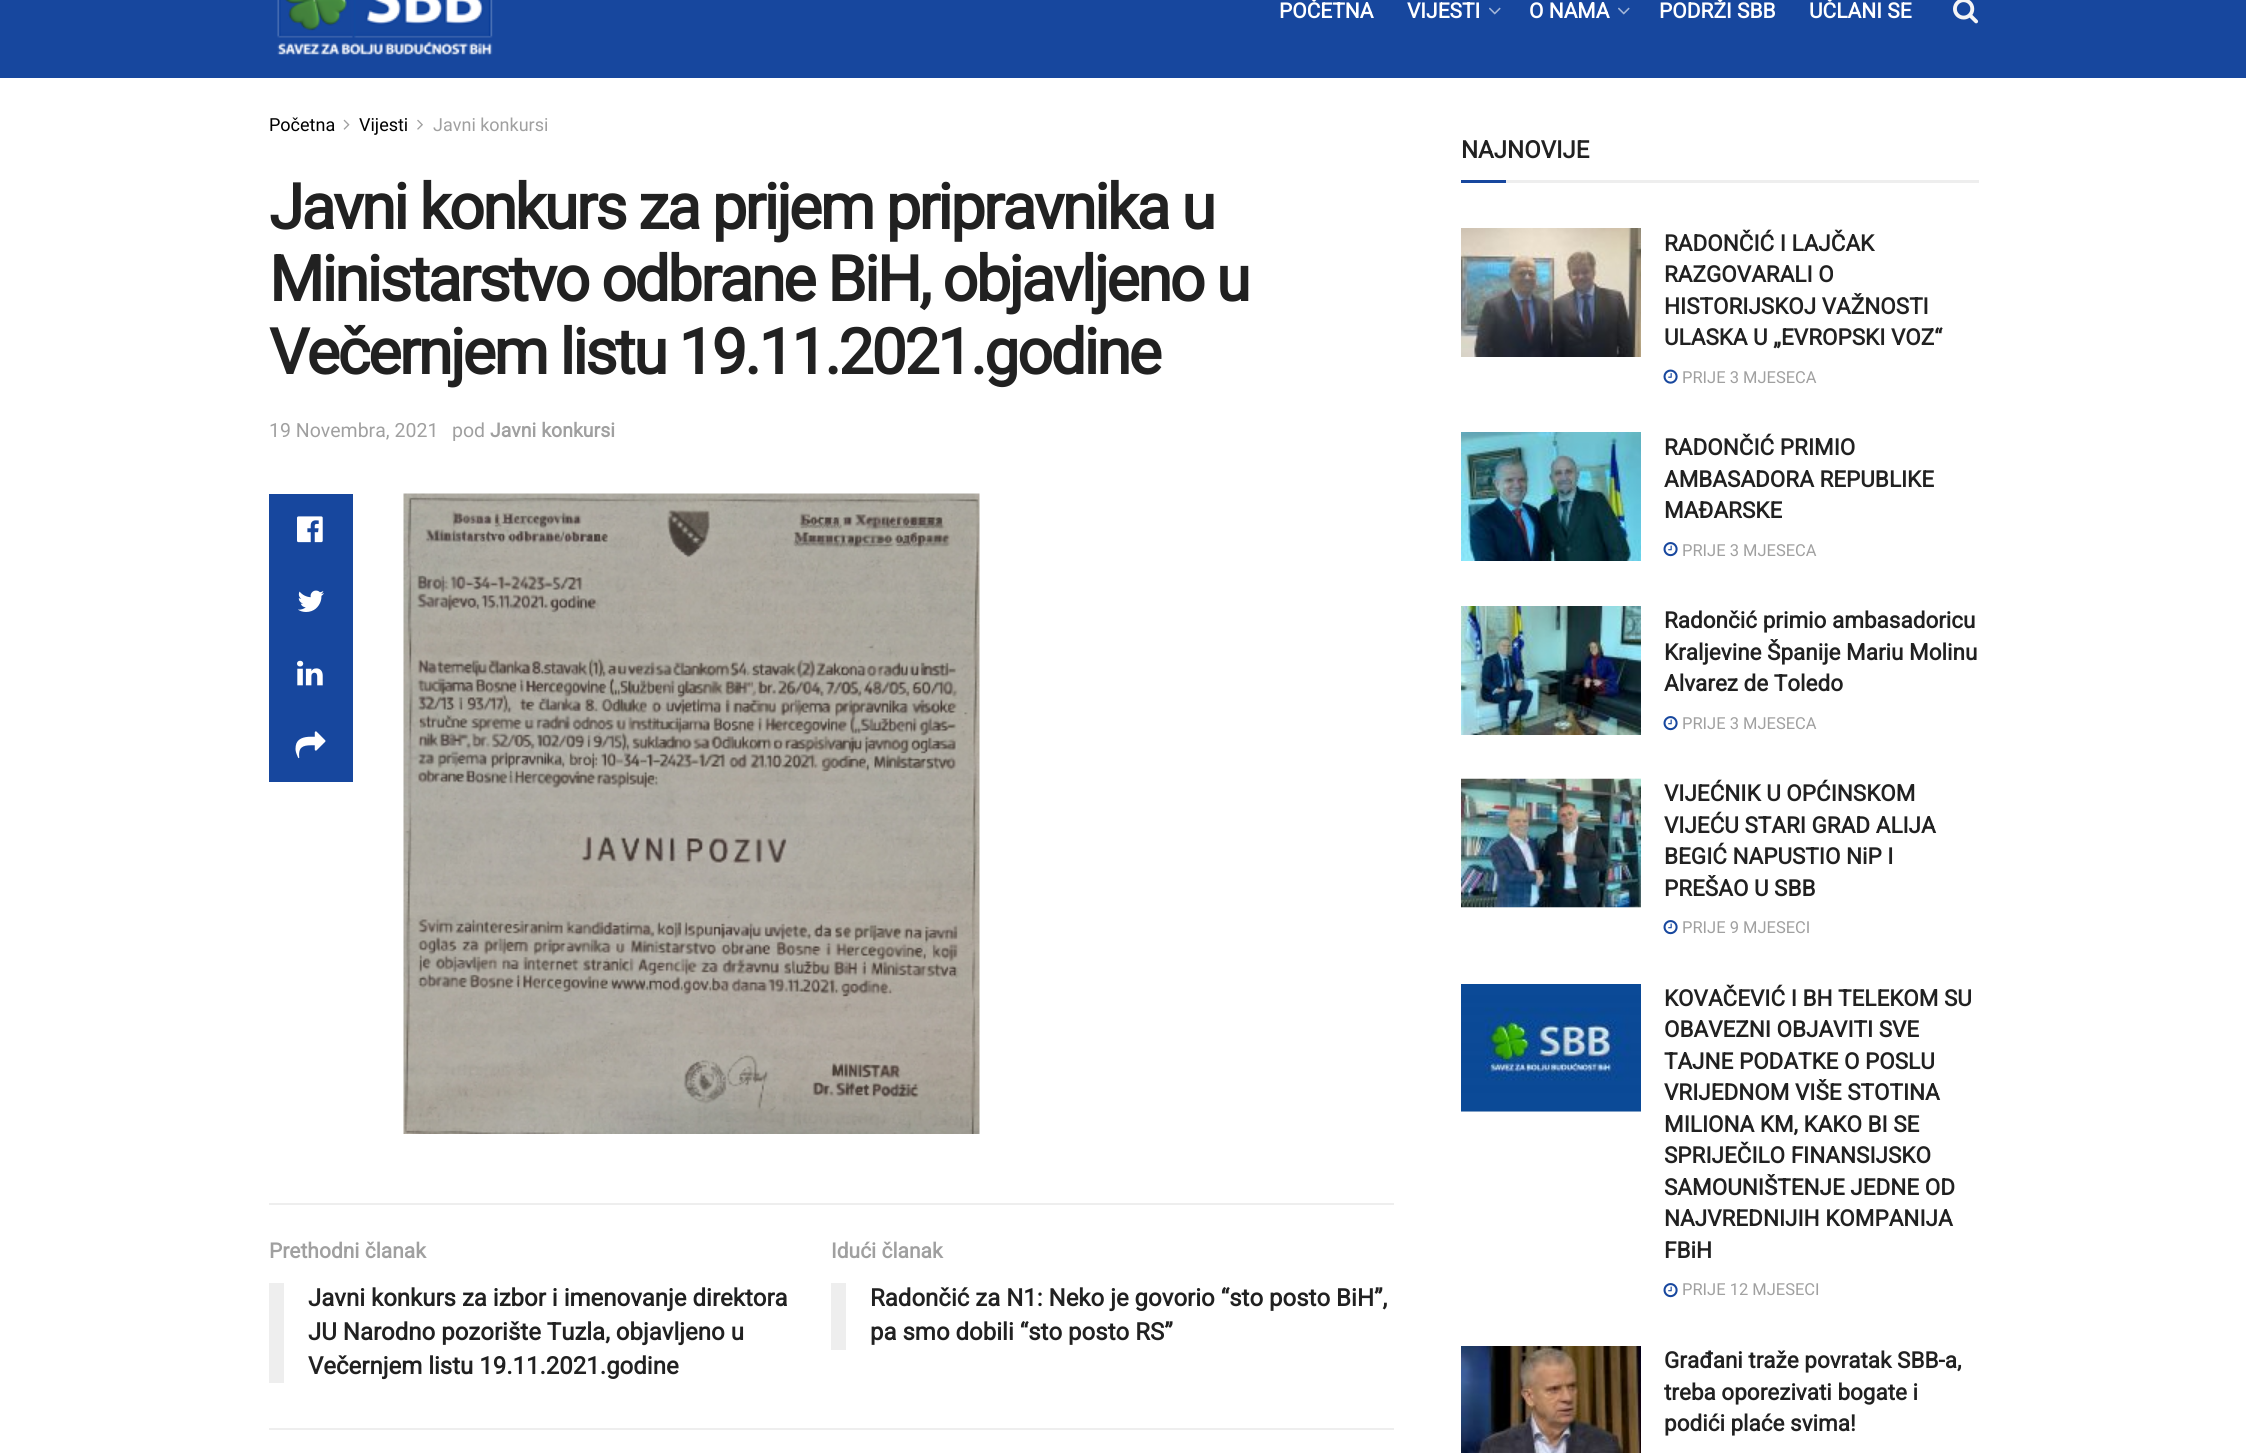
#include <cairo/cairo.h>
#include <math.h>
#include <stddef.h>

typedef struct { double x, y; const char *s; } line_t;
typedef struct { double x, y, w, h; unsigned color; } box_t;
static cairo_t *cr;

static void rgb(unsigned color)
{
	cairo_set_source_rgb(cr, (color >> 16) / 255.0, (color >> 8 & 255) / 255.0, (color & 255) / 255.0);
}

static void tracked(double x, double y, const char *s, double letter, double word)
{
	cairo_move_to(cr, x, y);
	while (*s) {
		char ch[5] = {0};
		int n = 0;
		do ch[n++] = *s++; while ((*s & 0xC0) == 0x80);
		cairo_show_text(cr, ch);
		cairo_rel_move_to(cr, letter + word * (*ch == ' '), 0);
	}
}

static void image(const char *path, double x, double y, double w, double h)
{
	cairo_surface_t *image = cairo_image_surface_create_from_png(path);
	cairo_save(cr);
	cairo_set_source_surface(cr, image, x, y);
	cairo_rectangle(cr, x, y, w, h);
	cairo_fill(cr);
	cairo_restore(cr);
	cairo_surface_destroy(image);
}

int main(void) {
	cairo_surface_t *surface = cairo_image_surface_create(CAIRO_FORMAT_RGB24, 2246, 1453);
	cr = cairo_create(surface);
	cairo_font_options_t *options = cairo_font_options_create();
	cairo_font_options_set_hint_metrics(options, CAIRO_HINT_METRICS_OFF);
	cairo_font_options_set_hint_style(options, CAIRO_HINT_STYLE_NONE);
	cairo_set_font_options(cr, options);
	cairo_set_miter_limit(cr, 4);
	rgb(0xffffff);
	cairo_paint(cr);
	rgb(0x17479e);
	cairo_rectangle(cr, 0, 0, 2246, 78);
	cairo_fill(cr);
	image("img/1.png", 277, 0, 216, 55);
	image("img/2.png", 1489, 7, 12, 8);
	image("img/2.png", 1618, 7, 12, 8);
	image("img/3.png", 1953, 0, 26, 24);
	image("img/4.png", 343, 119, 7, 11);
	image("img/5.png", 417, 119, 6, 11);
	cairo_rectangle(cr, 269, 494, 84, 288);
	cairo_fill(cr);
	image("img/6.png", 297, 516, 26, 27);
	image("img/7.png", 298, 590, 26, 22);
	image("img/8.png", 297, 660, 26, 26);
	image("img/9.png", 295, 731, 31, 28);
	image("img/10.png", 403, 493, 577, 641);
	{
		static const box_t items[] = {
			{269, 1203, 1125, 2, 0xeeeeee},
			{269, 1428, 1125, 2, 0xeeeeee},
			{269, 1283, 15, 100, 0xeeeeee},
			{831, 1283, 15, 67, 0xeeeeee},
			{1506, 180, 473, 3, 0xeeeeee},
			{1461, 180, 45, 3, 0x17479e},
		};
		for (size_t i = 0; i < sizeof items / sizeof *items; i++) {
			rgb(items[i].color);
			cairo_rectangle(cr, items[i].x, items[i].y, items[i].w, items[i].h);
			cairo_fill(cr);
		}
	}
	image("img/11.png", 1461, 228, 180, 129);
	image("img/12.png", 1663, 369, 15, 15);
	image("img/13.png", 1461, 432, 180, 129);
	image("img/14.png", 1663, 542, 15, 15);
	image("img/15.png", 1461, 606, 180, 129);
	image("img/14.png", 1663, 716, 15, 15);
	rgb(0xf7f7f7);
	cairo_rectangle(cr, 1461, 907, 180, 1);
	cairo_fill(cr);
	image("img/17.png", 1612, 778, 29, 1);
	image("img/16.png", 1461, 778, 180, 130);
	image("img/14.png", 1663, 920, 15, 15);
	cairo_rectangle(cr, 1461, 1111, 180, 1);
	cairo_fill(cr);
	image("img/18.png", 1461, 984, 180, 128);
	image("img/14.png", 1663, 1283, 15, 15);
	image("img/19.png", 1461, 1346, 180, 107);
	cairo_select_font_face(cr, "Roboto", CAIRO_FONT_SLANT_NORMAL, CAIRO_FONT_WEIGHT_BOLD);
	cairo_set_font_size(cr, 21);
	rgb(0xffffff);
	{
		static const line_t items[] = {
			{1279, 18, "POČETNA"},
			{1407, 18, "VIJESTI"},
			{1529, 18, "O NAMA"},
			{1659, 18, "PODRŽI SBB"},
			{1809, 18, "UČLANI SE"},
		};
		for (size_t i = 0; i < sizeof items / sizeof *items; i++) {
			cairo_move_to(cr, items[i].x, items[i].y);
			cairo_show_text(cr, items[i].s);
		}
	}
	cairo_select_font_face(cr, "Roboto", CAIRO_FONT_SLANT_NORMAL, CAIRO_FONT_WEIGHT_NORMAL);
	cairo_set_font_size(cr, 18);
	rgb(0x000000);
	cairo_move_to(cr, 269, 131);
	cairo_show_text(cr, "Početna");
	cairo_move_to(cr, 359, 131);
	cairo_show_text(cr, "Vijesti");
	rgb(0xa0a0a0);
	cairo_move_to(cr, 433, 131);
	cairo_show_text(cr, "Javni konkursi");
	cairo_select_font_face(cr, "Roboto", CAIRO_FONT_SLANT_NORMAL, CAIRO_FONT_WEIGHT_BOLD);
	cairo_set_font_size(cr, 63);
	rgb(0x212121);
	{
		static const line_t items[] = {
			{269, 229, "Javni konkurs za prijem pripravnika u"},
			{269, 301, "Ministarstvo odbrane BiH, objavljeno u"},
			{269, 374, "Večernjem listu 19.11.2021.godine"},
		};
		for (size_t i = 0; i < sizeof items / sizeof *items; i++) {
			tracked(items[i].x, items[i].y, items[i].s, -2.5, 0);
		}
	}
	cairo_select_font_face(cr, "Roboto", CAIRO_FONT_SLANT_NORMAL, CAIRO_FONT_WEIGHT_NORMAL);
	cairo_set_font_size(cr, 19.5);
	rgb(0xa0a0a0);
	cairo_move_to(cr, 269, 437);
	cairo_show_text(cr, "19 Novembra, 2021");
	cairo_move_to(cr, 452, 437);
	cairo_show_text(cr, "pod");
	cairo_select_font_face(cr, "Roboto", CAIRO_FONT_SLANT_NORMAL, CAIRO_FONT_WEIGHT_BOLD);
	cairo_move_to(cr, 490, 437);
	cairo_show_text(cr, "Javni konkursi");
	cairo_set_font_size(cr, 21);
	cairo_move_to(cr, 269, 1258);
	cairo_show_text(cr, "Prethodni članak");
	cairo_set_font_size(cr, 24);
	rgb(0x212121);
	{
		static const line_t items[] = {
			{308, 1306, "Javni konkurs za izbor i imenovanje direktora"},
			{308, 1340, "JU Narodno pozorište Tuzla, objavljeno u"},
			{308, 1374, "Večernjem listu 19.11.2021.godine"},
		};
		for (size_t i = 0; i < sizeof items / sizeof *items; i++) {
			cairo_move_to(cr, items[i].x, items[i].y);
			cairo_show_text(cr, items[i].s);
		}
	}
	cairo_set_font_size(cr, 21);
	rgb(0xa0a0a0);
	cairo_move_to(cr, 831, 1258);
	cairo_show_text(cr, "Idući članak");
	cairo_set_font_size(cr, 24);
	rgb(0x212121);
	{
		static const line_t items[] = {
			{870, 1306, "Radončić za N1: Neko je govorio “sto posto BiH”,"},
			{870, 1340, "pa smo dobili “sto posto RS”"},
			{1461, 158, "NAJNOVIJE"},
		};
		for (size_t i = 0; i < sizeof items / sizeof *items; i++) {
			cairo_move_to(cr, items[i].x, items[i].y);
			cairo_show_text(cr, items[i].s);
		}
	}
	cairo_set_font_size(cr, 22.5);
	{
		static const line_t items[] = {
			{1664, 251, "RADONČIĆ I LAJČAK"},
			{1664, 282, "RAZGOVARALI O"},
			{1664, 314, "HISTORIJSKOJ VAŽNOSTI"},
			{1664, 345, "ULASKA U „EVROPSKI VOZ“"},
		};
		for (size_t i = 0; i < sizeof items / sizeof *items; i++) {
			cairo_move_to(cr, items[i].x, items[i].y);
			cairo_show_text(cr, items[i].s);
		}
	}
	cairo_select_font_face(cr, "Roboto", CAIRO_FONT_SLANT_NORMAL, CAIRO_FONT_WEIGHT_NORMAL);
	cairo_set_font_size(cr, 16.5);
	rgb(0xa0a0a0);
	cairo_move_to(cr, 1682, 383);
	cairo_show_text(cr, "PRIJE 3 MJESECA");
	cairo_select_font_face(cr, "Roboto", CAIRO_FONT_SLANT_NORMAL, CAIRO_FONT_WEIGHT_BOLD);
	cairo_set_font_size(cr, 22.5);
	rgb(0x212121);
	{
		static const line_t items[] = {
			{1664, 455, "RADONČIĆ PRIMIO"},
			{1664, 487, "AMBASADORA REPUBLIKE"},
			{1664, 518, "MAĐARSKE"},
		};
		for (size_t i = 0; i < sizeof items / sizeof *items; i++) {
			cairo_move_to(cr, items[i].x, items[i].y);
			cairo_show_text(cr, items[i].s);
		}
	}
	cairo_select_font_face(cr, "Roboto", CAIRO_FONT_SLANT_NORMAL, CAIRO_FONT_WEIGHT_NORMAL);
	cairo_set_font_size(cr, 16.5);
	rgb(0xa0a0a0);
	cairo_move_to(cr, 1682, 556);
	cairo_show_text(cr, "PRIJE 3 MJESECA");
	cairo_select_font_face(cr, "Roboto", CAIRO_FONT_SLANT_NORMAL, CAIRO_FONT_WEIGHT_BOLD);
	cairo_set_font_size(cr, 22.5);
	rgb(0x212121);
	{
		static const line_t items[] = {
			{1664, 628, "Radončić primio ambasadoricu"},
			{1664, 660, "Kraljevine Španije Mariu Molinu"},
			{1664, 691, "Alvarez de Toledo"},
		};
		for (size_t i = 0; i < sizeof items / sizeof *items; i++) {
			cairo_move_to(cr, items[i].x, items[i].y);
			cairo_show_text(cr, items[i].s);
		}
	}
	cairo_select_font_face(cr, "Roboto", CAIRO_FONT_SLANT_NORMAL, CAIRO_FONT_WEIGHT_NORMAL);
	cairo_set_font_size(cr, 16.5);
	rgb(0xa0a0a0);
	cairo_move_to(cr, 1682, 729);
	cairo_show_text(cr, "PRIJE 3 MJESECA");
	cairo_select_font_face(cr, "Roboto", CAIRO_FONT_SLANT_NORMAL, CAIRO_FONT_WEIGHT_BOLD);
	cairo_set_font_size(cr, 22.5);
	rgb(0x212121);
	{
		static const line_t items[] = {
			{1664, 801, "VIJEĆNIK U OPĆINSKOM"},
			{1664, 833, "VIJEĆU STARI GRAD ALIJA"},
			{1664, 864, "BEGIĆ NAPUSTIO NiP I"},
			{1664, 896, "PREŠAO U SBB"},
		};
		for (size_t i = 0; i < sizeof items / sizeof *items; i++) {
			cairo_move_to(cr, items[i].x, items[i].y);
			cairo_show_text(cr, items[i].s);
		}
	}
	cairo_select_font_face(cr, "Roboto", CAIRO_FONT_SLANT_NORMAL, CAIRO_FONT_WEIGHT_NORMAL);
	cairo_set_font_size(cr, 16.5);
	rgb(0xa0a0a0);
	cairo_move_to(cr, 1682, 933);
	cairo_show_text(cr, "PRIJE 9 MJESECI");
	cairo_select_font_face(cr, "Roboto", CAIRO_FONT_SLANT_NORMAL, CAIRO_FONT_WEIGHT_BOLD);
	cairo_set_font_size(cr, 22.5);
	rgb(0x212121);
	{
		static const line_t items[] = {
			{1664, 1006, "KOVAČEVIĆ I BH TELEKOM SU"},
			{1664, 1037, "OBAVEZNI OBJAVITI SVE"},
			{1664, 1069, "TAJNE PODATKE O POSLU"},
			{1664, 1100, "VRIJEDNOM VIŠE STOTINA"},
			{1664, 1132, "MILIONA KM, KAKO BI SE"},
			{1664, 1163, "SPRIJEČILO FINANSIJSKO"},
			{1664, 1195, "SAMOUNIŠTENJE JEDNE OD"},
			{1664, 1226, "NAJVREDNIJIH KOMPANIJA"},
			{1664, 1258, "FBiH"},
		};
		for (size_t i = 0; i < sizeof items / sizeof *items; i++) {
			cairo_move_to(cr, items[i].x, items[i].y);
			cairo_show_text(cr, items[i].s);
		}
	}
	cairo_select_font_face(cr, "Roboto", CAIRO_FONT_SLANT_NORMAL, CAIRO_FONT_WEIGHT_NORMAL);
	cairo_set_font_size(cr, 16.5);
	rgb(0xa0a0a0);
	cairo_move_to(cr, 1682, 1295);
	cairo_show_text(cr, "PRIJE 12 MJESECI");
	cairo_select_font_face(cr, "Roboto", CAIRO_FONT_SLANT_NORMAL, CAIRO_FONT_WEIGHT_BOLD);
	cairo_set_font_size(cr, 22.5);
	rgb(0x212121);
	{
		static const line_t items[] = {
			{1664, 1368, "Građani traže povratak SBB-a,"},
			{1664, 1400, "treba oporezivati bogate i"},
			{1664, 1431, "podići plaće svima!"},
		};
		for (size_t i = 0; i < sizeof items / sizeof *items; i++) {
			cairo_move_to(cr, items[i].x, items[i].y);
			cairo_show_text(cr, items[i].s);
		}
	}
	cairo_surface_write_to_png(surface, "page.png");
	cairo_font_options_destroy(options);
	cairo_destroy(cr);
	cairo_surface_destroy(surface);
	return 0;
}
